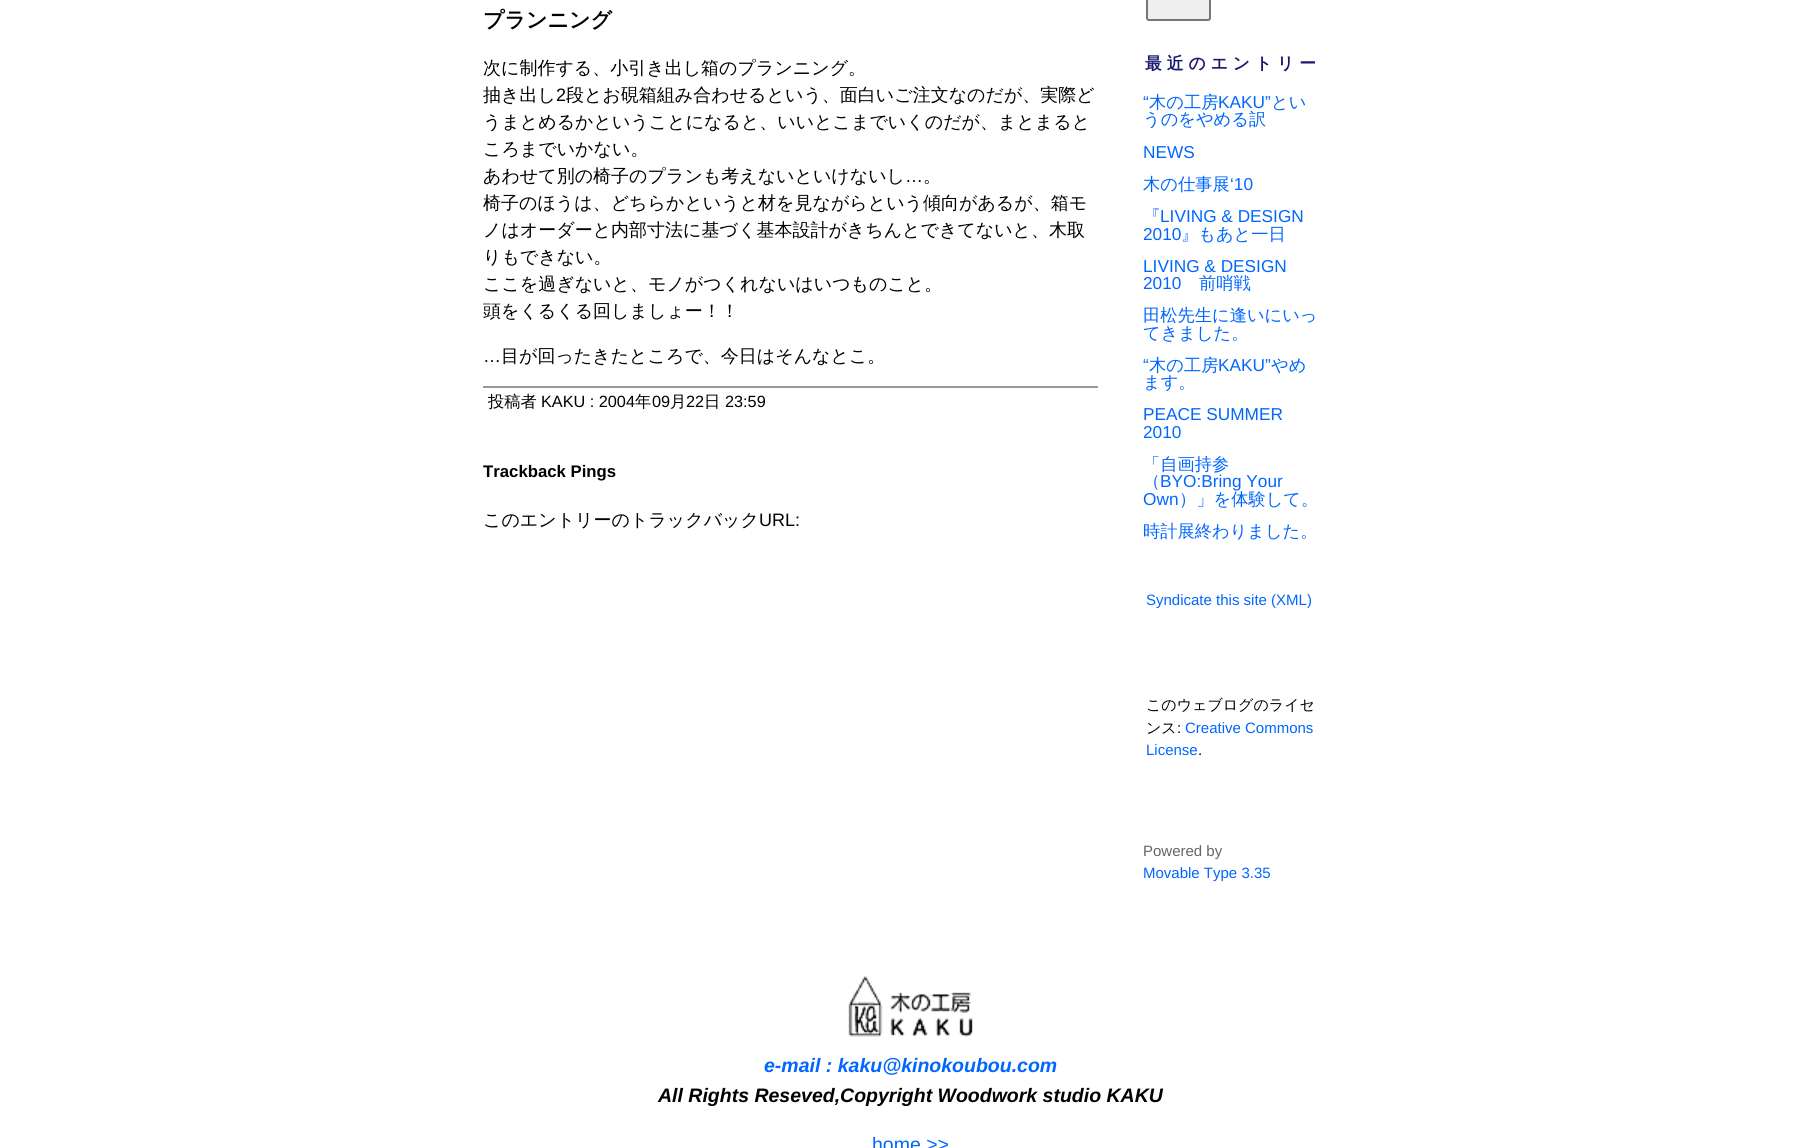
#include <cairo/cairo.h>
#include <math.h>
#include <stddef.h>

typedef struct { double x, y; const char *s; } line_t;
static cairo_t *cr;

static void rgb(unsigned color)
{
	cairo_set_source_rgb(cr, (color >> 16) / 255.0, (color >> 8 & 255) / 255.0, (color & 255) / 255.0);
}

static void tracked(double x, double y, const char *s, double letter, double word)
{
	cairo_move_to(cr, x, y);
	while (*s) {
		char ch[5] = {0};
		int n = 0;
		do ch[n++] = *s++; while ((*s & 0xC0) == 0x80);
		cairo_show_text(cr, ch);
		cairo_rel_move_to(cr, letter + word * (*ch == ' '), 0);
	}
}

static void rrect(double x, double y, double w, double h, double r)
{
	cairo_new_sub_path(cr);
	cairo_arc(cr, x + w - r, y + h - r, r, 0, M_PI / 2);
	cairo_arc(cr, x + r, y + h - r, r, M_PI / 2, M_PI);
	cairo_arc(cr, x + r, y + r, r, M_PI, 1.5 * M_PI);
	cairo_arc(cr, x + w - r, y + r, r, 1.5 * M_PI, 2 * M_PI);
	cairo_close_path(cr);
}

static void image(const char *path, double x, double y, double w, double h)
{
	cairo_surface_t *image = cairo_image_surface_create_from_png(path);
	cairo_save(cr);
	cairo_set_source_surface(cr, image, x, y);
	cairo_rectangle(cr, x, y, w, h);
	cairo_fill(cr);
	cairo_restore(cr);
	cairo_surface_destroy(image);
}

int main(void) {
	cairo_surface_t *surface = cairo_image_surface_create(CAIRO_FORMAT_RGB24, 1820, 1148);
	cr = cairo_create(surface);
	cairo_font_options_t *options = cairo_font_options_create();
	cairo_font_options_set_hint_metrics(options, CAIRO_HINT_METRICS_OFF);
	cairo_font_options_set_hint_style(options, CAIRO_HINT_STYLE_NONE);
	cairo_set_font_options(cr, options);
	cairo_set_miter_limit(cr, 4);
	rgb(0xffffff);
	cairo_paint(cr);
	rgb(0x999999);
	cairo_rectangle(cr, 483, 386, 615, 2);
	cairo_fill(cr);
	rgb(0xefefef);
	rrect(1147, -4, 63, 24, 2);
	cairo_fill_preserve(cr);
	rgb(0x767676);
	cairo_stroke(cr);
	image("img/1.png", 848, 976, 125, 61);
	cairo_select_font_face(cr, "WenQuanYi Zen Hei", CAIRO_FONT_SLANT_NORMAL, CAIRO_FONT_WEIGHT_BOLD);
	cairo_set_font_size(cr, 21);
	rgb(0x000000);
	cairo_move_to(cr, 483, 27);
	cairo_show_text(cr, "プランニング");
	cairo_select_font_face(cr, "WenQuanYi Zen Hei Medium", CAIRO_FONT_SLANT_NORMAL, CAIRO_FONT_WEIGHT_NORMAL);
	cairo_set_font_size(cr, 18);
	cairo_move_to(cr, 483, 74);
	cairo_show_text(cr, "次に制作する、小引き出し箱のプランニング。");
	cairo_move_to(cr, 483, 101);
	cairo_show_text(cr, "抽き出し");
	cairo_select_font_face(cr, "Liberation Sans", CAIRO_FONT_SLANT_NORMAL, CAIRO_FONT_WEIGHT_NORMAL);
	cairo_move_to(cr, 556, 101);
	cairo_show_text(cr, "2");
	cairo_select_font_face(cr, "WenQuanYi Zen Hei Medium", CAIRO_FONT_SLANT_NORMAL, CAIRO_FONT_WEIGHT_NORMAL);
	{
		static const line_t items[] = {
			{566, 101, "段とお硯箱組み合わせるという、面白いご注文なのだが、実際ど"},
			{483, 128, "うまとめるかということになると、いいとこまでいくのだが、まとまると"},
			{483, 155, "ころまでいかない。"},
			{483, 182, "あわせて別の椅子のプランも考えないといけないし"},
		};
		for (size_t i = 0; i < sizeof items / sizeof *items; i++) {
			cairo_move_to(cr, items[i].x, items[i].y);
			cairo_show_text(cr, items[i].s);
		}
	}
	cairo_select_font_face(cr, "Liberation Sans", CAIRO_FONT_SLANT_NORMAL, CAIRO_FONT_WEIGHT_NORMAL);
	cairo_move_to(cr, 905, 182);
	cairo_show_text(cr, "…");
	cairo_select_font_face(cr, "WenQuanYi Zen Hei Medium", CAIRO_FONT_SLANT_NORMAL, CAIRO_FONT_WEIGHT_NORMAL);
	{
		static const line_t items[] = {
			{923, 182, "。"},
			{483, 209, "椅子のほうは、どちらかというと材を見ながらという傾向があるが、箱モ"},
			{483, 236, "ノはオーダーと内部寸法に基づく基本設計がきちんとできてないと、木取"},
			{483, 263, "りもできない。"},
			{483, 290, "ここを過ぎないと、モノがつくれないはいつものこと。"},
			{483, 317, "頭をくるくる回しましょー！！"},
		};
		for (size_t i = 0; i < sizeof items / sizeof *items; i++) {
			cairo_move_to(cr, items[i].x, items[i].y);
			cairo_show_text(cr, items[i].s);
		}
	}
	cairo_select_font_face(cr, "Liberation Sans", CAIRO_FONT_SLANT_NORMAL, CAIRO_FONT_WEIGHT_NORMAL);
	cairo_move_to(cr, 483, 362);
	cairo_show_text(cr, "…");
	cairo_select_font_face(cr, "WenQuanYi Zen Hei Medium", CAIRO_FONT_SLANT_NORMAL, CAIRO_FONT_WEIGHT_NORMAL);
	cairo_move_to(cr, 501, 362);
	cairo_show_text(cr, "目が回ったきたところで、今日はそんなとこ。");
	cairo_set_font_size(cr, 16.25);
	cairo_move_to(cr, 488, 407);
	cairo_show_text(cr, "投稿者");
	cairo_select_font_face(cr, "Liberation Sans", CAIRO_FONT_SLANT_NORMAL, CAIRO_FONT_WEIGHT_NORMAL);
	cairo_move_to(cr, 541, 407);
	cairo_show_text(cr, "KAKU : 2004");
	cairo_select_font_face(cr, "WenQuanYi Zen Hei Medium", CAIRO_FONT_SLANT_NORMAL, CAIRO_FONT_WEIGHT_NORMAL);
	cairo_move_to(cr, 635, 407);
	cairo_show_text(cr, "年");
	cairo_select_font_face(cr, "Liberation Sans", CAIRO_FONT_SLANT_NORMAL, CAIRO_FONT_WEIGHT_NORMAL);
	cairo_move_to(cr, 652, 407);
	cairo_show_text(cr, "09");
	cairo_select_font_face(cr, "WenQuanYi Zen Hei Medium", CAIRO_FONT_SLANT_NORMAL, CAIRO_FONT_WEIGHT_NORMAL);
	cairo_move_to(cr, 670, 407);
	cairo_show_text(cr, "月");
	cairo_select_font_face(cr, "Liberation Sans", CAIRO_FONT_SLANT_NORMAL, CAIRO_FONT_WEIGHT_NORMAL);
	cairo_move_to(cr, 686, 407);
	cairo_show_text(cr, "22");
	cairo_select_font_face(cr, "WenQuanYi Zen Hei Medium", CAIRO_FONT_SLANT_NORMAL, CAIRO_FONT_WEIGHT_NORMAL);
	cairo_move_to(cr, 704, 407);
	cairo_show_text(cr, "日");
	cairo_select_font_face(cr, "Liberation Sans", CAIRO_FONT_SLANT_NORMAL, CAIRO_FONT_WEIGHT_NORMAL);
	cairo_move_to(cr, 725, 407);
	cairo_show_text(cr, "23:59");
	cairo_select_font_face(cr, "Liberation Sans", CAIRO_FONT_SLANT_NORMAL, CAIRO_FONT_WEIGHT_BOLD);
	cairo_set_font_size(cr, 16.75);
	cairo_move_to(cr, 483, 477);
	cairo_show_text(cr, "Trackback Pings");
	cairo_select_font_face(cr, "WenQuanYi Zen Hei Medium", CAIRO_FONT_SLANT_NORMAL, CAIRO_FONT_WEIGHT_NORMAL);
	cairo_set_font_size(cr, 18);
	cairo_move_to(cr, 483, 526);
	cairo_show_text(cr, "このエントリーのトラックバック");
	cairo_select_font_face(cr, "Liberation Sans", CAIRO_FONT_SLANT_NORMAL, CAIRO_FONT_WEIGHT_NORMAL);
	cairo_move_to(cr, 759, 526);
	cairo_show_text(cr, "URL:");
	cairo_select_font_face(cr, "WenQuanYi Zen Hei", CAIRO_FONT_SLANT_NORMAL, CAIRO_FONT_WEIGHT_BOLD);
	cairo_set_font_size(cr, 16.75);
	rgb(0x191970);
	tracked(1145, 69, "最近のエントリー", 5, 0);
	cairo_select_font_face(cr, "Liberation Sans", CAIRO_FONT_SLANT_NORMAL, CAIRO_FONT_WEIGHT_NORMAL);
	cairo_set_font_size(cr, 17.25);
	rgb(0x0066ff);
	cairo_move_to(cr, 1143, 108);
	cairo_show_text(cr, "“");
	cairo_select_font_face(cr, "WenQuanYi Zen Hei Medium", CAIRO_FONT_SLANT_NORMAL, CAIRO_FONT_WEIGHT_NORMAL);
	cairo_move_to(cr, 1149, 108);
	cairo_show_text(cr, "木の工房");
	cairo_select_font_face(cr, "Liberation Sans", CAIRO_FONT_SLANT_NORMAL, CAIRO_FONT_WEIGHT_NORMAL);
	cairo_move_to(cr, 1218, 108);
	cairo_show_text(cr, "KAKU”");
	cairo_select_font_face(cr, "WenQuanYi Zen Hei Medium", CAIRO_FONT_SLANT_NORMAL, CAIRO_FONT_WEIGHT_NORMAL);
	cairo_move_to(cr, 1271, 108);
	cairo_show_text(cr, "とい");
	cairo_move_to(cr, 1143, 125);
	cairo_show_text(cr, "うのをやめる訳");
	cairo_select_font_face(cr, "Liberation Sans", CAIRO_FONT_SLANT_NORMAL, CAIRO_FONT_WEIGHT_NORMAL);
	cairo_move_to(cr, 1143, 158);
	cairo_show_text(cr, "NEWS");
	cairo_select_font_face(cr, "WenQuanYi Zen Hei Medium", CAIRO_FONT_SLANT_NORMAL, CAIRO_FONT_WEIGHT_NORMAL);
	cairo_move_to(cr, 1143, 190);
	cairo_show_text(cr, "木の仕事展");
	cairo_select_font_face(cr, "Liberation Sans", CAIRO_FONT_SLANT_NORMAL, CAIRO_FONT_WEIGHT_NORMAL);
	cairo_move_to(cr, 1230, 190);
	cairo_show_text(cr, "‘10");
	cairo_select_font_face(cr, "WenQuanYi Zen Hei Medium", CAIRO_FONT_SLANT_NORMAL, CAIRO_FONT_WEIGHT_NORMAL);
	cairo_move_to(cr, 1143, 222);
	cairo_show_text(cr, "『");
	cairo_select_font_face(cr, "Liberation Sans", CAIRO_FONT_SLANT_NORMAL, CAIRO_FONT_WEIGHT_NORMAL);
	cairo_move_to(cr, 1160, 222);
	cairo_show_text(cr, "LIVING & DESIGN");
	cairo_move_to(cr, 1143, 240);
	cairo_show_text(cr, "2010");
	cairo_select_font_face(cr, "WenQuanYi Zen Hei Medium", CAIRO_FONT_SLANT_NORMAL, CAIRO_FONT_WEIGHT_NORMAL);
	cairo_move_to(cr, 1181, 240);
	cairo_show_text(cr, "』もあと一日");
	cairo_select_font_face(cr, "Liberation Sans", CAIRO_FONT_SLANT_NORMAL, CAIRO_FONT_WEIGHT_NORMAL);
	cairo_move_to(cr, 1143, 272);
	cairo_show_text(cr, "LIVING & DESIGN");
	cairo_move_to(cr, 1143, 289);
	cairo_show_text(cr, "2010");
	cairo_select_font_face(cr, "WenQuanYi Zen Hei Medium", CAIRO_FONT_SLANT_NORMAL, CAIRO_FONT_WEIGHT_NORMAL);
	{
		static const line_t items[] = {
			{1199, 289, "前哨戦"},
			{1143, 321, "田松先生に逢いにいっ"},
			{1143, 339, "てきました。"},
		};
		for (size_t i = 0; i < sizeof items / sizeof *items; i++) {
			cairo_move_to(cr, items[i].x, items[i].y);
			cairo_show_text(cr, items[i].s);
		}
	}
	cairo_select_font_face(cr, "Liberation Sans", CAIRO_FONT_SLANT_NORMAL, CAIRO_FONT_WEIGHT_NORMAL);
	cairo_move_to(cr, 1143, 371);
	cairo_show_text(cr, "“");
	cairo_select_font_face(cr, "WenQuanYi Zen Hei Medium", CAIRO_FONT_SLANT_NORMAL, CAIRO_FONT_WEIGHT_NORMAL);
	cairo_move_to(cr, 1149, 371);
	cairo_show_text(cr, "木の工房");
	cairo_select_font_face(cr, "Liberation Sans", CAIRO_FONT_SLANT_NORMAL, CAIRO_FONT_WEIGHT_NORMAL);
	cairo_move_to(cr, 1218, 371);
	cairo_show_text(cr, "KAKU”");
	cairo_select_font_face(cr, "WenQuanYi Zen Hei Medium", CAIRO_FONT_SLANT_NORMAL, CAIRO_FONT_WEIGHT_NORMAL);
	cairo_move_to(cr, 1271, 371);
	cairo_show_text(cr, "やめ");
	cairo_move_to(cr, 1143, 388);
	cairo_show_text(cr, "ます。");
	cairo_select_font_face(cr, "Liberation Sans", CAIRO_FONT_SLANT_NORMAL, CAIRO_FONT_WEIGHT_NORMAL);
	cairo_move_to(cr, 1143, 420);
	cairo_show_text(cr, "PEACE SUMMER");
	cairo_move_to(cr, 1143, 438);
	cairo_show_text(cr, "2010");
	cairo_select_font_face(cr, "WenQuanYi Zen Hei Medium", CAIRO_FONT_SLANT_NORMAL, CAIRO_FONT_WEIGHT_NORMAL);
	cairo_move_to(cr, 1143, 470);
	cairo_show_text(cr, "「自画持参");
	cairo_move_to(cr, 1143, 487);
	cairo_show_text(cr, "（");
	cairo_select_font_face(cr, "Liberation Sans", CAIRO_FONT_SLANT_NORMAL, CAIRO_FONT_WEIGHT_NORMAL);
	cairo_move_to(cr, 1160, 487);
	cairo_show_text(cr, "BYO:Bring Your");
	cairo_move_to(cr, 1143, 505);
	cairo_show_text(cr, "Own");
	cairo_select_font_face(cr, "WenQuanYi Zen Hei Medium", CAIRO_FONT_SLANT_NORMAL, CAIRO_FONT_WEIGHT_NORMAL);
	cairo_move_to(cr, 1179, 505);
	cairo_show_text(cr, "）」を体験して。");
	cairo_move_to(cr, 1143, 537);
	cairo_show_text(cr, "時計展終わりました。");
	cairo_select_font_face(cr, "Liberation Sans", CAIRO_FONT_SLANT_NORMAL, CAIRO_FONT_WEIGHT_NORMAL);
	cairo_set_font_size(cr, 15);
	cairo_move_to(cr, 1146, 605);
	cairo_show_text(cr, "Syndicate this site (XML)");
	cairo_select_font_face(cr, "WenQuanYi Zen Hei Medium", CAIRO_FONT_SLANT_NORMAL, CAIRO_FONT_WEIGHT_NORMAL);
	rgb(0x000000);
	cairo_move_to(cr, 1146, 710);
	cairo_show_text(cr, "このウェブログのライセ");
	cairo_move_to(cr, 1146, 733);
	cairo_show_text(cr, "ンス");
	cairo_select_font_face(cr, "Liberation Sans", CAIRO_FONT_SLANT_NORMAL, CAIRO_FONT_WEIGHT_NORMAL);
	cairo_move_to(cr, 1177, 733);
	cairo_show_text(cr, ":");
	rgb(0x0066ff);
	cairo_move_to(cr, 1185, 733);
	cairo_show_text(cr, "Creative Commons");
	cairo_move_to(cr, 1146, 755);
	cairo_show_text(cr, "License");
	rgb(0x000000);
	cairo_move_to(cr, 1198, 755);
	cairo_show_text(cr, ".");
	rgb(0x666666);
	cairo_move_to(cr, 1143, 856);
	cairo_show_text(cr, "Powered by");
	rgb(0x0066ff);
	cairo_move_to(cr, 1143, 878);
	cairo_show_text(cr, "Movable Type 3.35");
	cairo_select_font_face(cr, "Liberation Sans", CAIRO_FONT_SLANT_ITALIC, CAIRO_FONT_WEIGHT_BOLD);
	cairo_set_font_size(cr, 19.5);
	cairo_move_to(cr, 764, 1072);
	cairo_show_text(cr, "e-mail : kaku@kinokoubou.com");
	rgb(0x000000);
	cairo_move_to(cr, 658, 1102);
	cairo_show_text(cr, "All Rights Reseved,Copyright Woodwork studio KAKU");
	cairo_select_font_face(cr, "Liberation Sans", CAIRO_FONT_SLANT_NORMAL, CAIRO_FONT_WEIGHT_NORMAL);
	rgb(0x0066ff);
	cairo_move_to(cr, 872, 1151);
	cairo_show_text(cr, "home >>");
	cairo_surface_write_to_png(surface, "page.png");
	cairo_font_options_destroy(options);
	cairo_destroy(cr);
	cairo_surface_destroy(surface);
	return 0;
}
